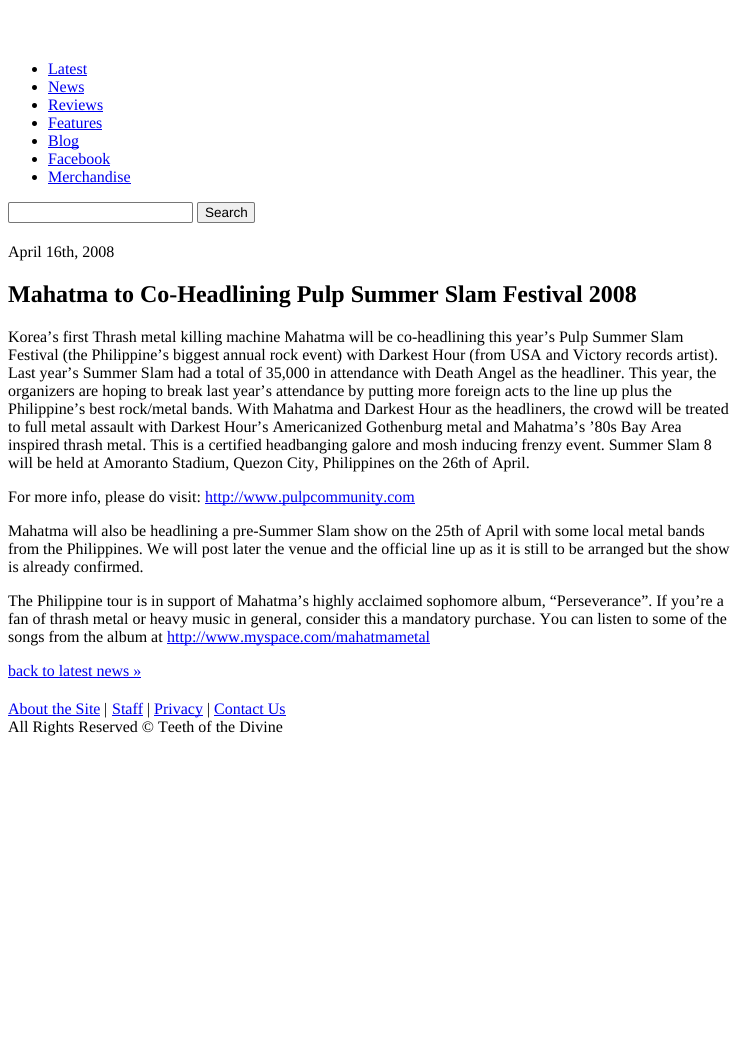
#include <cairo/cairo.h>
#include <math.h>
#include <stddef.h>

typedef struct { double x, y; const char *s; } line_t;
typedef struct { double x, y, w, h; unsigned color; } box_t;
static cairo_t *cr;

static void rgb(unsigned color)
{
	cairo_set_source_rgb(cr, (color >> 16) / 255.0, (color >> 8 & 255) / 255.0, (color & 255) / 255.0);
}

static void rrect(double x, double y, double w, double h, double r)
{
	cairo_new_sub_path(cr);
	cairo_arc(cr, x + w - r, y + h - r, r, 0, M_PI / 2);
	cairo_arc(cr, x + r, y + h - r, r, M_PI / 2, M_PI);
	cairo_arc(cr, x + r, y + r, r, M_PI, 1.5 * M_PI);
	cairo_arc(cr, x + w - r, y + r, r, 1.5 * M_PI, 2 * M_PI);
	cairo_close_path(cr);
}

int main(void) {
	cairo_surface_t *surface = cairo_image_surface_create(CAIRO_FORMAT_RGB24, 744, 1059);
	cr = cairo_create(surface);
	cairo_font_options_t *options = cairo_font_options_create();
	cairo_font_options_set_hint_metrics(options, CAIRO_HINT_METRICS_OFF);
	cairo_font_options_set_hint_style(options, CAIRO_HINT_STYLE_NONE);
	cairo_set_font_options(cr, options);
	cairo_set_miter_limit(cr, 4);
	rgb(0xffffff);
	cairo_paint(cr);
	rgb(0x000000);
	cairo_arc(cr, 34.5, 69.5, 2.5, 0, 2 * M_PI);
	cairo_fill(cr);
	rgb(0x0000ee);
	cairo_rectangle(cr, 48, 75, 39, 1);
	cairo_fill(cr);
	rgb(0x000000);
	cairo_arc(cr, 34.5, 87.5, 2.5, 0, 2 * M_PI);
	cairo_fill(cr);
	rgb(0x0000ee);
	cairo_rectangle(cr, 48, 93, 36, 1);
	cairo_fill(cr);
	rgb(0x000000);
	cairo_arc(cr, 34.5, 105.5, 2.5, 0, 2 * M_PI);
	cairo_fill(cr);
	rgb(0x0000ee);
	cairo_rectangle(cr, 48, 111, 55, 1);
	cairo_fill(cr);
	rgb(0x000000);
	cairo_arc(cr, 34.5, 123.5, 2.5, 0, 2 * M_PI);
	cairo_fill(cr);
	rgb(0x0000ee);
	cairo_rectangle(cr, 48, 129, 54, 1);
	cairo_fill(cr);
	rgb(0x000000);
	cairo_arc(cr, 34.5, 141.5, 2.5, 0, 2 * M_PI);
	cairo_fill(cr);
	rgb(0x0000ee);
	cairo_rectangle(cr, 48, 147, 31, 1);
	cairo_fill(cr);
	rgb(0x000000);
	cairo_arc(cr, 34.5, 159.5, 2.5, 0, 2 * M_PI);
	cairo_fill(cr);
	rgb(0x0000ee);
	cairo_rectangle(cr, 48, 165, 62, 1);
	cairo_fill(cr);
	rgb(0x000000);
	cairo_arc(cr, 34.5, 177.5, 2.5, 0, 2 * M_PI);
	cairo_fill(cr);
	rgb(0x0000ee);
	cairo_rectangle(cr, 48, 183, 83, 1);
	cairo_fill(cr);
	rrect(8.5, 202.5, 184, 20, 1.5);
	rgb(0x767676);
	cairo_set_line_width(cr, 1);
	cairo_stroke(cr);
	rgb(0xefefef);
	rrect(197.5, 202.5, 57, 20, 1.5);
	cairo_fill_preserve(cr);
	rgb(0x767676);
	cairo_stroke(cr);
	{
		static const box_t items[] = {
			{205, 503, 210, 1, 0x0000ee},
			{167, 643, 263, 1, 0x0000ee},
			{8, 677, 133, 1, 0x0000ee},
			{8, 715, 92, 1, 0x0000ee},
			{112, 715, 31, 1, 0x0000ee},
			{154, 715, 49, 1, 0x0000ee},
			{214, 715, 72, 1, 0x0000ee},
		};
		for (size_t i = 0; i < sizeof items / sizeof *items; i++) {
			rgb(items[i].color);
			cairo_rectangle(cr, items[i].x, items[i].y, items[i].w, items[i].h);
			cairo_fill(cr);
		}
	}
	cairo_select_font_face(cr, "Liberation Serif", CAIRO_FONT_SLANT_NORMAL, CAIRO_FONT_WEIGHT_NORMAL);
	cairo_set_font_size(cr, 16);
	{
		static const line_t items[] = {
			{48, 74, "Latest"},
			{48, 92, "News"},
			{48, 110, "Reviews"},
			{48, 128, "Features"},
			{48, 146, "Blog"},
			{48, 164, "Facebook"},
			{48, 182, "Merchandise"},
		};
		for (size_t i = 0; i < sizeof items / sizeof *items; i++) {
			cairo_move_to(cr, items[i].x, items[i].y);
			cairo_show_text(cr, items[i].s);
		}
	}
	cairo_select_font_face(cr, "Liberation Sans", CAIRO_FONT_SLANT_NORMAL, CAIRO_FONT_WEIGHT_NORMAL);
	cairo_set_font_size(cr, 13.5);
	rgb(0x000000);
	cairo_move_to(cr, 205, 217);
	cairo_show_text(cr, "Search");
	cairo_select_font_face(cr, "Liberation Serif", CAIRO_FONT_SLANT_NORMAL, CAIRO_FONT_WEIGHT_NORMAL);
	cairo_set_font_size(cr, 16);
	cairo_move_to(cr, 8, 257);
	cairo_show_text(cr, "April 16th, 2008");
	cairo_select_font_face(cr, "Liberation Serif", CAIRO_FONT_SLANT_NORMAL, CAIRO_FONT_WEIGHT_BOLD);
	cairo_set_font_size(cr, 24);
	cairo_move_to(cr, 8, 302);
	cairo_show_text(cr, "Mahatma to Co-Headlining Pulp Summer Slam Festival 2008");
	cairo_select_font_face(cr, "Liberation Serif", CAIRO_FONT_SLANT_NORMAL, CAIRO_FONT_WEIGHT_NORMAL);
	cairo_set_font_size(cr, 16);
	{
		static const line_t items[] = {
			{8, 342, "Korea’s first Thrash metal killing machine Mahatma will be co-headlining this year’s Pulp Summer Slam"},
			{8, 360, "Festival (the Philippine’s biggest annual rock event) with Darkest Hour (from USA and Victory records artist)."},
			{8, 378, "Last year’s Summer Slam had a total of 35,000 in attendance with Death Angel as the headliner. This year, the"},
			{8, 396, "organizers are hoping to break last year’s attendance by putting more foreign acts to the line up plus the"},
			{8, 414, "Philippine’s best rock/metal bands. With Mahatma and Darkest Hour as the headliners, the crowd will be treated"},
			{8, 432, "to full metal assault with Darkest Hour’s Americanized Gothenburg metal and Mahatma’s ’80s Bay Area"},
			{8, 450, "inspired thrash metal. This is a certified headbanging galore and mosh inducing frenzy event. Summer Slam 8"},
			{8, 468, "will be held at Amoranto Stadium, Quezon City, Philippines on the 26th of April."},
			{8, 502, "For more info, please do visit:"},
		};
		for (size_t i = 0; i < sizeof items / sizeof *items; i++) {
			cairo_move_to(cr, items[i].x, items[i].y);
			cairo_show_text(cr, items[i].s);
		}
	}
	rgb(0x0000ee);
	cairo_move_to(cr, 205, 502);
	cairo_show_text(cr, "http://www.pulpcommunity.com");
	rgb(0x000000);
	{
		static const line_t items[] = {
			{8, 536, "Mahatma will also be headlining a pre-Summer Slam show on the 25th of April with some local metal bands"},
			{8, 554, "from the Philippines. We will post later the venue and the official line up as it is still to be arranged but the show"},
			{8, 572, "is already confirmed."},
			{8, 606, "The Philippine tour is in support of Mahatma’s highly acclaimed sophomore album, “Perseverance”. If you’re a"},
			{8, 624, "fan of thrash metal or heavy music in general, consider this a mandatory purchase. You can listen to some of the"},
			{8, 642, "songs from the album at"},
		};
		for (size_t i = 0; i < sizeof items / sizeof *items; i++) {
			cairo_move_to(cr, items[i].x, items[i].y);
			cairo_show_text(cr, items[i].s);
		}
	}
	rgb(0x0000ee);
	{
		static const line_t items[] = {
			{167, 642, "http://www.myspace.com/mahatmametal"},
			{8, 676, "back to latest news »"},
			{8, 714, "About the Site"},
		};
		for (size_t i = 0; i < sizeof items / sizeof *items; i++) {
			cairo_move_to(cr, items[i].x, items[i].y);
			cairo_show_text(cr, items[i].s);
		}
	}
	rgb(0x000000);
	cairo_move_to(cr, 104, 714);
	cairo_show_text(cr, "|");
	rgb(0x0000ee);
	cairo_move_to(cr, 112, 714);
	cairo_show_text(cr, "Staff");
	rgb(0x000000);
	cairo_move_to(cr, 147, 714);
	cairo_show_text(cr, "|");
	rgb(0x0000ee);
	cairo_move_to(cr, 154, 714);
	cairo_show_text(cr, "Privacy");
	rgb(0x000000);
	cairo_move_to(cr, 207, 714);
	cairo_show_text(cr, "|");
	rgb(0x0000ee);
	cairo_move_to(cr, 214, 714);
	cairo_show_text(cr, "Contact Us");
	rgb(0x000000);
	cairo_move_to(cr, 8, 732);
	cairo_show_text(cr, "All Rights Reserved © Teeth of the Divine");
	cairo_surface_write_to_png(surface, "page.png");
	cairo_font_options_destroy(options);
	cairo_destroy(cr);
	cairo_surface_destroy(surface);
	return 0;
}
